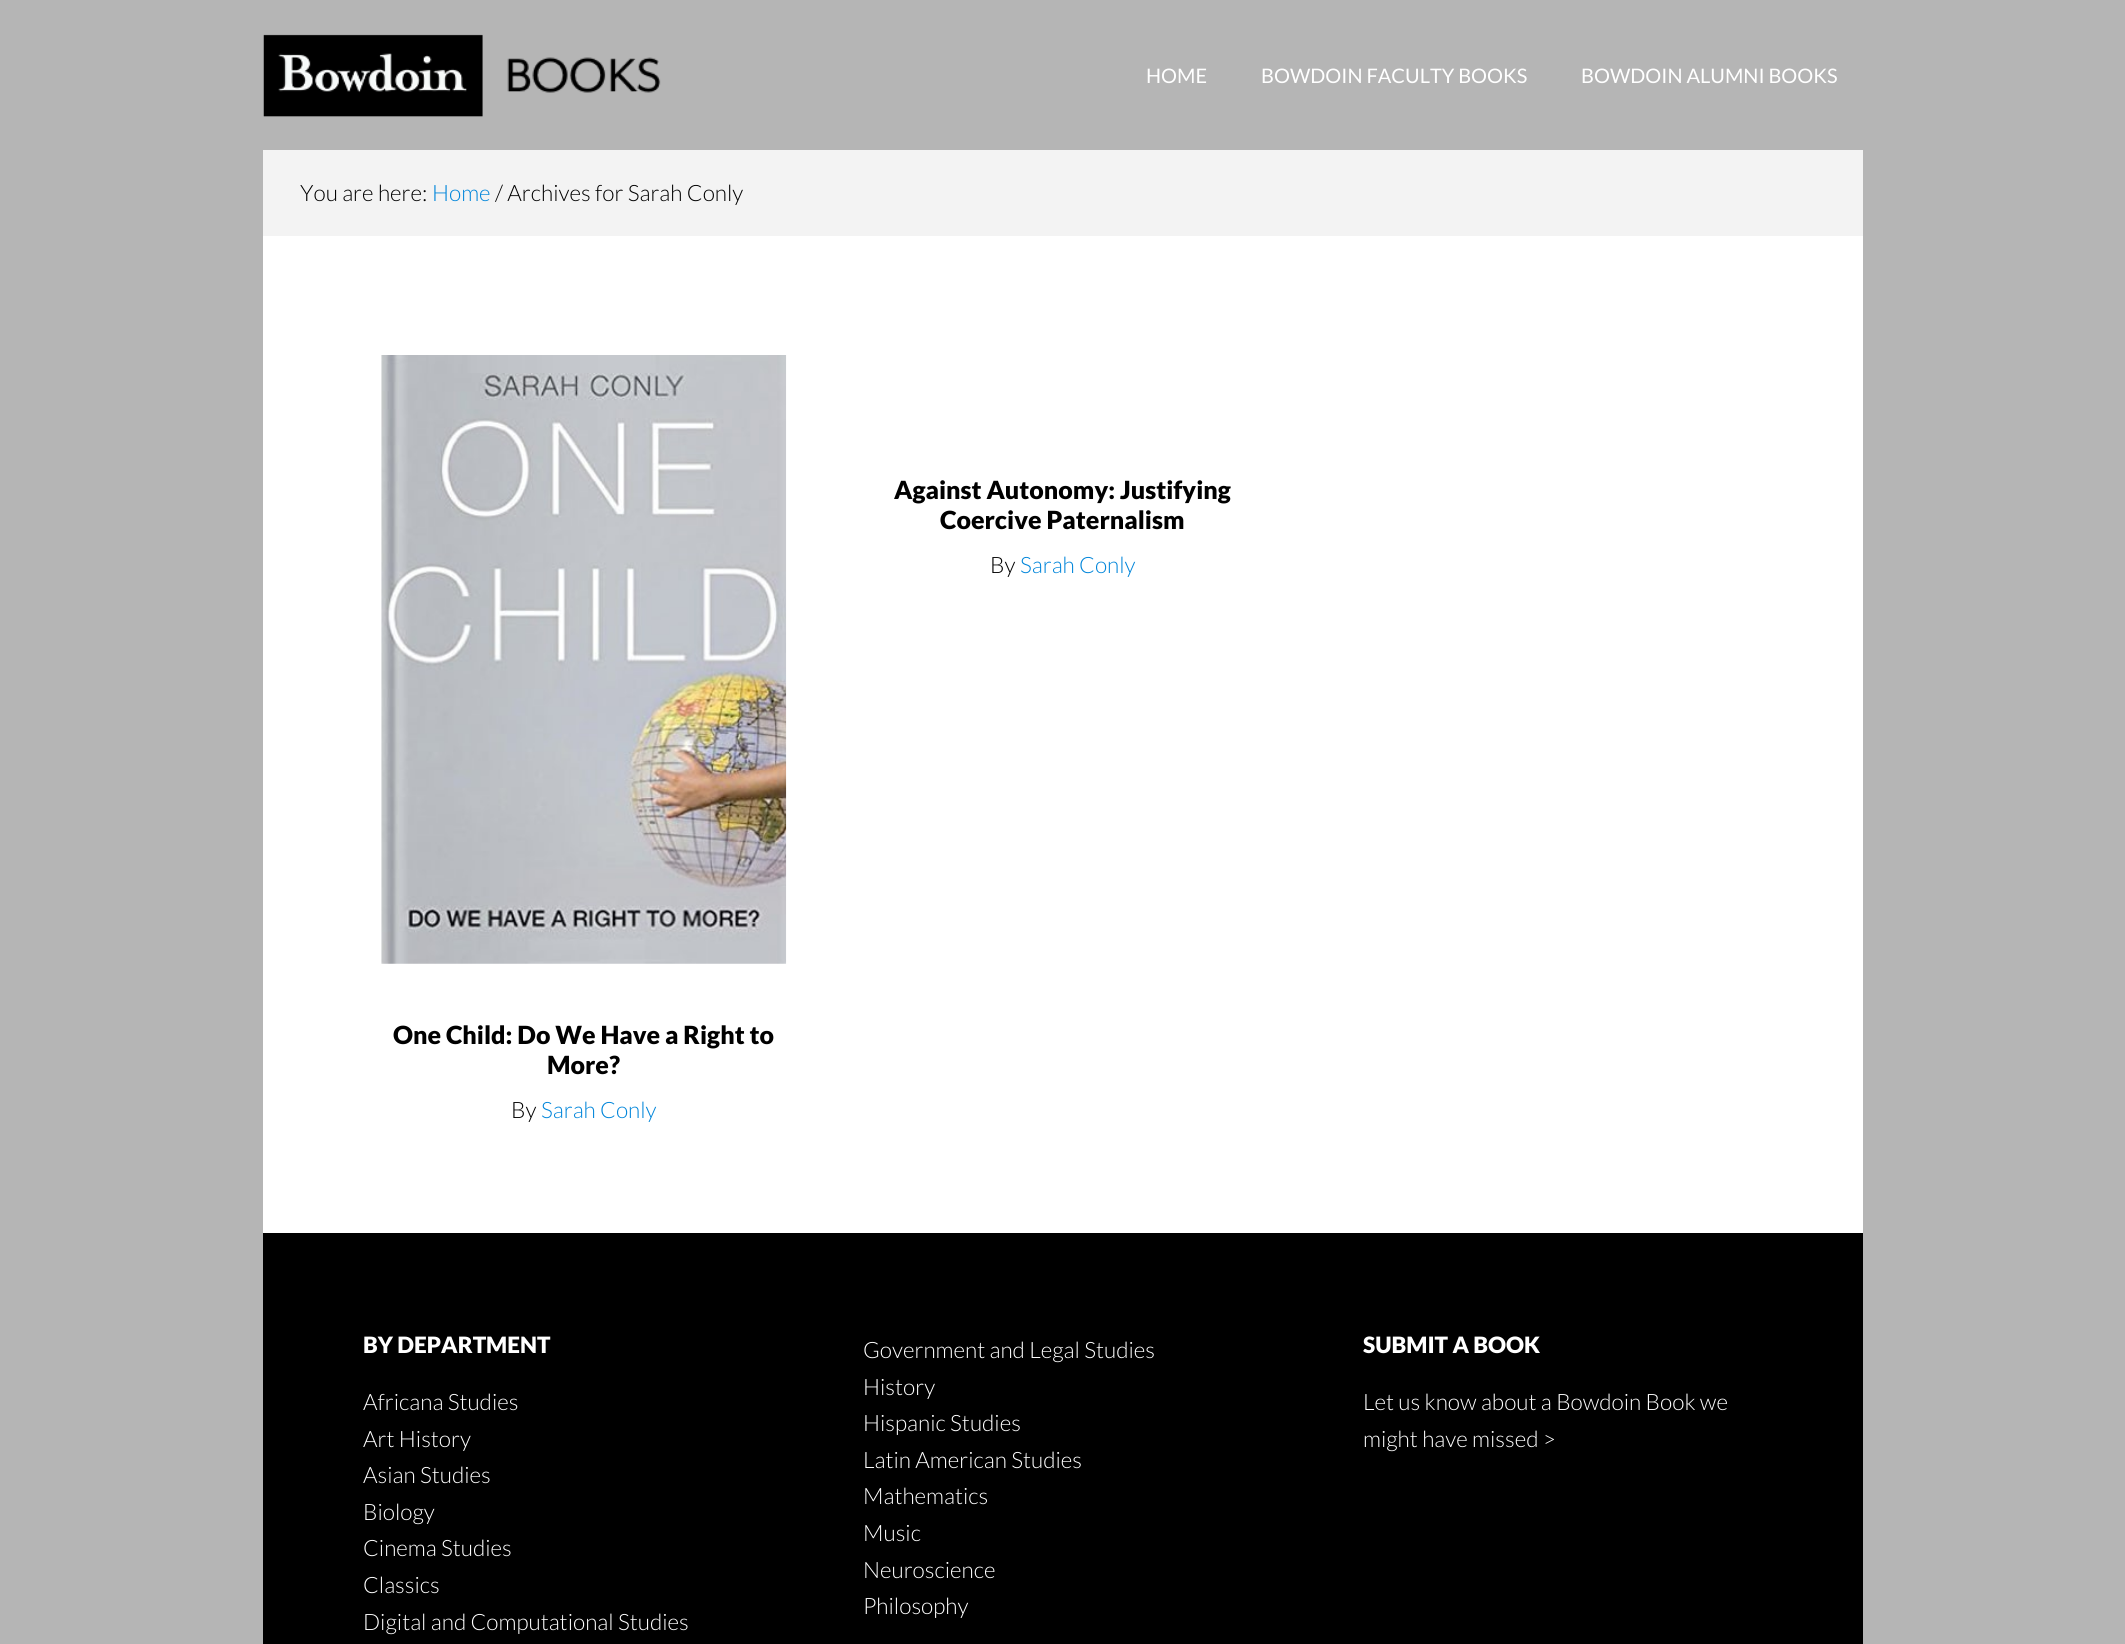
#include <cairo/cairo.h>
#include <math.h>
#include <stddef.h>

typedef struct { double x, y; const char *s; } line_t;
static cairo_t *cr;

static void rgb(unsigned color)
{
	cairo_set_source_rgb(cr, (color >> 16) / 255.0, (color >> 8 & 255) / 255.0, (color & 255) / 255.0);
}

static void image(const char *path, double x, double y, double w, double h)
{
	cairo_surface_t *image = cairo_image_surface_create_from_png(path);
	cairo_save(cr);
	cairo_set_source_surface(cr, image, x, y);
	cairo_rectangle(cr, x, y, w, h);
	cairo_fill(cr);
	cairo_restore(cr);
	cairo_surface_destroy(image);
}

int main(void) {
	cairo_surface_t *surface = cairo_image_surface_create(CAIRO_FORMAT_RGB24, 2125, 1644);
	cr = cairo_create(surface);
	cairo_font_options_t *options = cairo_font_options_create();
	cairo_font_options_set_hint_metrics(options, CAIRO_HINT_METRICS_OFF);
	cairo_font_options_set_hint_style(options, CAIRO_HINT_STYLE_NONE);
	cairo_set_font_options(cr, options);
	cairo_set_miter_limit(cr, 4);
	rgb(0xb5b5b5);
	cairo_paint(cr);
	image("img/1.png", 263, 34, 398, 83);
	rgb(0xffffff);
	cairo_rectangle(cr, 263, 236, 1600, 997);
	cairo_fill(cr);
	rgb(0xf3f3f3);
	cairo_rectangle(cr, 263, 150, 1600, 86);
	cairo_fill(cr);
	image("img/2.png", 381, 355, 406, 609);
	rgb(0x000000);
	cairo_rectangle(cr, 263, 1233, 1600, 411);
	cairo_fill(cr);
	cairo_select_font_face(cr, "Lato", CAIRO_FONT_SLANT_NORMAL, CAIRO_FONT_WEIGHT_NORMAL);
	cairo_set_font_size(cr, 20);
	rgb(0xffffff);
	{
		static const line_t items[] = {
			{1146, 83, "HOME"},
			{1261, 83, "BOWDOIN FACULTY BOOKS"},
			{1581, 83, "BOWDOIN ALUMNI BOOKS"},
		};
		for (size_t i = 0; i < sizeof items / sizeof *items; i++) {
			cairo_move_to(cr, items[i].x, items[i].y);
			cairo_show_text(cr, items[i].s);
		}
	}
	cairo_select_font_face(cr, "Lato Light", CAIRO_FONT_SLANT_NORMAL, CAIRO_FONT_WEIGHT_NORMAL);
	cairo_set_font_size(cr, 22.5);
	rgb(0x000000);
	cairo_move_to(cr, 300, 201);
	cairo_show_text(cr, "You are here:");
	rgb(0x0085da);
	cairo_move_to(cr, 432, 201);
	cairo_show_text(cr, "Home");
	rgb(0x000000);
	cairo_move_to(cr, 495, 201);
	cairo_show_text(cr, "/ Archives for Sarah Conly");
	cairo_select_font_face(cr, "Lato Black", CAIRO_FONT_SLANT_NORMAL, CAIRO_FONT_WEIGHT_NORMAL);
	cairo_set_font_size(cr, 25);
	cairo_move_to(cr, 894, 499);
	cairo_show_text(cr, "Against Autonomy: Justifying");
	cairo_move_to(cr, 940, 529);
	cairo_show_text(cr, "Coercive Paternalism");
	cairo_select_font_face(cr, "Lato Light", CAIRO_FONT_SLANT_NORMAL, CAIRO_FONT_WEIGHT_NORMAL);
	cairo_set_font_size(cr, 22.5);
	cairo_move_to(cr, 990, 573);
	cairo_show_text(cr, "By");
	rgb(0x0085da);
	cairo_move_to(cr, 1020, 573);
	cairo_show_text(cr, "Sarah Conly");
	cairo_select_font_face(cr, "Lato Black", CAIRO_FONT_SLANT_NORMAL, CAIRO_FONT_WEIGHT_NORMAL);
	cairo_set_font_size(cr, 25);
	rgb(0x000000);
	cairo_move_to(cr, 393, 1044);
	cairo_show_text(cr, "One Child: Do We Have a Right to");
	cairo_move_to(cr, 547, 1074);
	cairo_show_text(cr, "More?");
	cairo_select_font_face(cr, "Lato Light", CAIRO_FONT_SLANT_NORMAL, CAIRO_FONT_WEIGHT_NORMAL);
	cairo_set_font_size(cr, 22.5);
	cairo_move_to(cr, 511, 1118);
	cairo_show_text(cr, "By");
	rgb(0x0085da);
	cairo_move_to(cr, 541, 1118);
	cairo_show_text(cr, "Sarah Conly");
	cairo_select_font_face(cr, "Lato Black", CAIRO_FONT_SLANT_NORMAL, CAIRO_FONT_WEIGHT_NORMAL);
	rgb(0xffffff);
	cairo_move_to(cr, 363, 1353);
	cairo_show_text(cr, "BY DEPARTMENT");
	cairo_select_font_face(cr, "Lato Light", CAIRO_FONT_SLANT_NORMAL, CAIRO_FONT_WEIGHT_NORMAL);
	{
		static const line_t items[] = {
			{363, 1410, "Africana Studies"},
			{363, 1447, "Art History"},
			{363, 1483, "Asian Studies"},
			{363, 1520, "Biology"},
			{363, 1556, "Cinema Studies"},
			{363, 1593, "Classics"},
			{363, 1630, "Digital and Computational Studies"},
			{863, 1358, "Government and Legal Studies"},
			{863, 1395, "History"},
			{863, 1431, "Hispanic Studies"},
			{863, 1468, "Latin American Studies"},
			{863, 1504, "Mathematics"},
			{863, 1541, "Music"},
			{863, 1578, "Neuroscience"},
			{863, 1614, "Philosophy"},
		};
		for (size_t i = 0; i < sizeof items / sizeof *items; i++) {
			cairo_move_to(cr, items[i].x, items[i].y);
			cairo_show_text(cr, items[i].s);
		}
	}
	cairo_select_font_face(cr, "Lato Black", CAIRO_FONT_SLANT_NORMAL, CAIRO_FONT_WEIGHT_NORMAL);
	cairo_move_to(cr, 1363, 1353);
	cairo_show_text(cr, "SUBMIT A BOOK");
	cairo_select_font_face(cr, "Lato Light", CAIRO_FONT_SLANT_NORMAL, CAIRO_FONT_WEIGHT_NORMAL);
	cairo_move_to(cr, 1363, 1410);
	cairo_show_text(cr, "Let us know about a Bowdoin Book we");
	cairo_move_to(cr, 1363, 1447);
	cairo_show_text(cr, "might have missed >");
	cairo_surface_write_to_png(surface, "page.png");
	cairo_font_options_destroy(options);
	cairo_destroy(cr);
	cairo_surface_destroy(surface);
	return 0;
}
